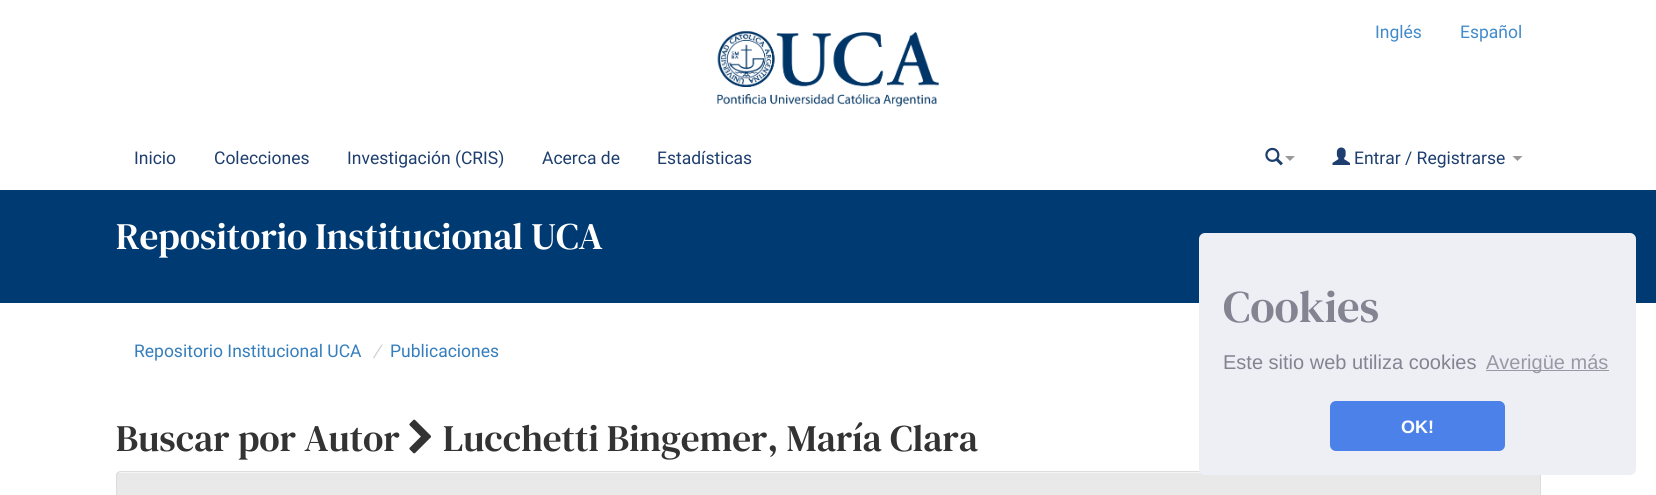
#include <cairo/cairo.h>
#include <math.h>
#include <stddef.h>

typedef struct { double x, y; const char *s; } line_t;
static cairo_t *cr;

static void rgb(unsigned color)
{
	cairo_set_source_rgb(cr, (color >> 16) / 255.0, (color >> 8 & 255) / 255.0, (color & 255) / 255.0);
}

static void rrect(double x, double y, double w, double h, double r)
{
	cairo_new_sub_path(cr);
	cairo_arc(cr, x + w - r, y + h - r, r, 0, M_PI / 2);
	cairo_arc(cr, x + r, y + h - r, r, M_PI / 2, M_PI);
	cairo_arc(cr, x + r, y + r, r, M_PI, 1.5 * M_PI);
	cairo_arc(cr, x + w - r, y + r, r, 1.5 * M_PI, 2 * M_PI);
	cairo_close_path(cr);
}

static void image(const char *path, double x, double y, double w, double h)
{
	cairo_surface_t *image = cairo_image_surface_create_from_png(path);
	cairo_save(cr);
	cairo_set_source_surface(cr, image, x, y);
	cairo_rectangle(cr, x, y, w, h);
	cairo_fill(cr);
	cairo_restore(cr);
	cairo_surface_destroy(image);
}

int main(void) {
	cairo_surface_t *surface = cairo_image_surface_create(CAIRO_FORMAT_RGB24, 1656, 495);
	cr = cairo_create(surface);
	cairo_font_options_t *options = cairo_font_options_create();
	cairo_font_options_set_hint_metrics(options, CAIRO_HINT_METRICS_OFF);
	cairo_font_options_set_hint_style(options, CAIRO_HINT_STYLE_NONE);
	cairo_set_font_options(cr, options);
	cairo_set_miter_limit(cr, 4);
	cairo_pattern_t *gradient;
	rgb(0xffffff);
	cairo_paint(cr);
	image("img/1.png", 717, 31, 222, 76);
	image("img/2.png", 1265, 147, 18, 19);
	rgb(0x999999);
	cairo_new_path(cr);
	cairo_move_to(cr, 1285, 156);
	cairo_line_to(cr, 1295, 156);
	cairo_line_to(cr, 1290, 161);
	cairo_close_path(cr);
	cairo_fill(cr);
	image("img/3.png", 1332, 147, 18, 18);
	cairo_new_path(cr);
	cairo_move_to(cr, 1512.5, 156);
	cairo_line_to(cr, 1522.5, 156);
	cairo_line_to(cr, 1517.5, 161);
	cairo_close_path(cr);
	cairo_fill(cr);
	rgb(0x003a72);
	cairo_rectangle(cr, 0, 190, 1656, 113);
	cairo_fill(cr);
	image("img/4.png", 409, 419, 22, 35);
	rgb(0xf5f5f5);
	rrect(116, 471, 1425, 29, 5);
	cairo_fill(cr);
	gradient = cairo_pattern_create_linear(829, 472, 829, 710);
	cairo_pattern_add_color_stop_rgba(gradient, 0, 0.91, 0.91, 0.91, 1);
	cairo_pattern_add_color_stop_rgba(gradient, 1, 0.961, 0.961, 0.961, 1);
	cairo_set_source(cr, gradient);
	cairo_pattern_destroy(gradient);
	cairo_rectangle(cr, 116, 473, 1425, 22);
	cairo_fill(cr);
	rrect(116.5, 471.5, 1424, 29, 4.5);
	rgb(0xdcdcdc);
	cairo_set_line_width(cr, 1);
	cairo_stroke(cr);
	rgb(0xedeff5);
	rrect(1199, 233, 437, 242, 6);
	cairo_fill(cr);
	rgb(0x9899a5);
	cairo_rectangle(cr, 1486, 370, 123, 1);
	cairo_fill(cr);
	rgb(0x4b81e8);
	rrect(1330, 401, 175, 50, 6);
	cairo_fill(cr);
	cairo_select_font_face(cr, "Roboto", CAIRO_FONT_SLANT_NORMAL, CAIRO_FONT_WEIGHT_NORMAL);
	cairo_set_font_size(cr, 17.5);
	rgb(0x428bca);
	cairo_move_to(cr, 1375, 38);
	cairo_show_text(cr, "Inglés");
	cairo_move_to(cr, 1460, 38);
	cairo_show_text(cr, "Español");
	rgb(0x1e3e6f);
	{
		static const line_t items[] = {
			{134, 164, "Inicio"},
			{214, 164, "Colecciones"},
			{347, 164, "Investigación (CRIS)"},
			{542, 164, "Acerca de"},
			{657, 164, "Estadísticas"},
			{1354, 164, "Entrar / Registrarse"},
		};
		for (size_t i = 0; i < sizeof items / sizeof *items; i++) {
			cairo_move_to(cr, items[i].x, items[i].y);
			cairo_show_text(cr, items[i].s);
		}
	}
	cairo_select_font_face(cr, "DM Serif Text", CAIRO_FONT_SLANT_NORMAL, CAIRO_FONT_WEIGHT_NORMAL);
	cairo_set_font_size(cr, 37.5);
	rgb(0xffffff);
	cairo_move_to(cr, 116, 249);
	cairo_show_text(cr, "Repositorio Institucional UCA");
	cairo_select_font_face(cr, "Roboto", CAIRO_FONT_SLANT_NORMAL, CAIRO_FONT_WEIGHT_NORMAL);
	cairo_set_font_size(cr, 17.5);
	rgb(0x357ebd);
	cairo_move_to(cr, 134, 357);
	cairo_show_text(cr, "Repositorio Institucional UCA");
	cairo_select_font_face(cr, "Roboto", CAIRO_FONT_SLANT_ITALIC, CAIRO_FONT_WEIGHT_NORMAL);
	rgb(0xcccccc);
	cairo_move_to(cr, 373, 357);
	cairo_show_text(cr, "/");
	cairo_select_font_face(cr, "Roboto", CAIRO_FONT_SLANT_NORMAL, CAIRO_FONT_WEIGHT_NORMAL);
	rgb(0x357ebd);
	cairo_move_to(cr, 390, 357);
	cairo_show_text(cr, "Publicaciones");
	cairo_select_font_face(cr, "DM Serif Text", CAIRO_FONT_SLANT_NORMAL, CAIRO_FONT_WEIGHT_NORMAL);
	cairo_set_font_size(cr, 37.5);
	rgb(0x333333);
	cairo_move_to(cr, 116, 451);
	cairo_show_text(cr, "Buscar por Autor");
	cairo_move_to(cr, 443, 451);
	cairo_show_text(cr, "Lucchetti Bingemer, María Clara");
	cairo_set_font_size(cr, 45);
	rgb(0x838391);
	cairo_move_to(cr, 1223, 322);
	cairo_show_text(cr, "Cookies");
	cairo_select_font_face(cr, "Liberation Sans", CAIRO_FONT_SLANT_NORMAL, CAIRO_FONT_WEIGHT_NORMAL);
	cairo_set_font_size(cr, 20);
	cairo_move_to(cr, 1223, 369);
	cairo_show_text(cr, "Este sitio web utiliza cookies");
	rgb(0x9899a5);
	cairo_move_to(cr, 1486, 369);
	cairo_show_text(cr, "Averigüe más");
	cairo_select_font_face(cr, "Liberation Sans", CAIRO_FONT_SLANT_NORMAL, CAIRO_FONT_WEIGHT_BOLD);
	cairo_set_font_size(cr, 18);
	rgb(0xffffff);
	cairo_move_to(cr, 1401, 433);
	cairo_show_text(cr, "OK!");
	cairo_surface_write_to_png(surface, "page.png");
	cairo_font_options_destroy(options);
	cairo_destroy(cr);
	cairo_surface_destroy(surface);
	return 0;
}
